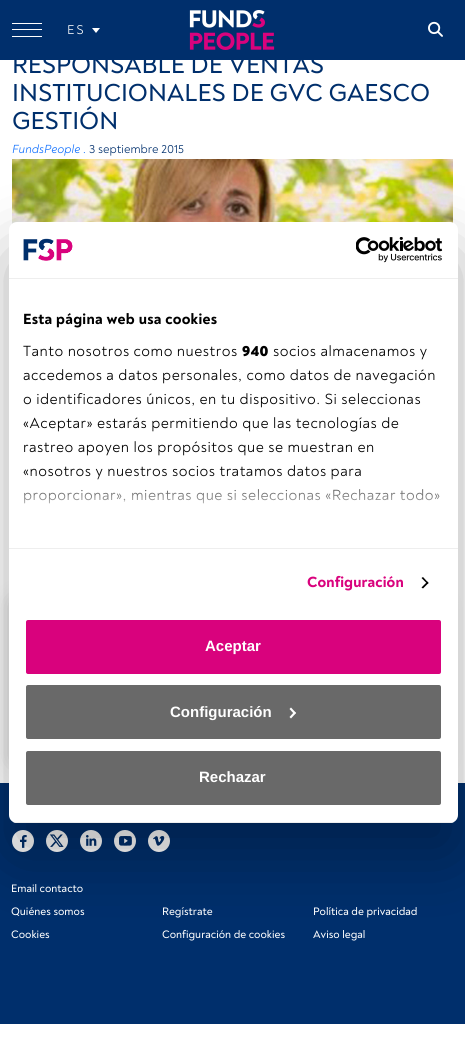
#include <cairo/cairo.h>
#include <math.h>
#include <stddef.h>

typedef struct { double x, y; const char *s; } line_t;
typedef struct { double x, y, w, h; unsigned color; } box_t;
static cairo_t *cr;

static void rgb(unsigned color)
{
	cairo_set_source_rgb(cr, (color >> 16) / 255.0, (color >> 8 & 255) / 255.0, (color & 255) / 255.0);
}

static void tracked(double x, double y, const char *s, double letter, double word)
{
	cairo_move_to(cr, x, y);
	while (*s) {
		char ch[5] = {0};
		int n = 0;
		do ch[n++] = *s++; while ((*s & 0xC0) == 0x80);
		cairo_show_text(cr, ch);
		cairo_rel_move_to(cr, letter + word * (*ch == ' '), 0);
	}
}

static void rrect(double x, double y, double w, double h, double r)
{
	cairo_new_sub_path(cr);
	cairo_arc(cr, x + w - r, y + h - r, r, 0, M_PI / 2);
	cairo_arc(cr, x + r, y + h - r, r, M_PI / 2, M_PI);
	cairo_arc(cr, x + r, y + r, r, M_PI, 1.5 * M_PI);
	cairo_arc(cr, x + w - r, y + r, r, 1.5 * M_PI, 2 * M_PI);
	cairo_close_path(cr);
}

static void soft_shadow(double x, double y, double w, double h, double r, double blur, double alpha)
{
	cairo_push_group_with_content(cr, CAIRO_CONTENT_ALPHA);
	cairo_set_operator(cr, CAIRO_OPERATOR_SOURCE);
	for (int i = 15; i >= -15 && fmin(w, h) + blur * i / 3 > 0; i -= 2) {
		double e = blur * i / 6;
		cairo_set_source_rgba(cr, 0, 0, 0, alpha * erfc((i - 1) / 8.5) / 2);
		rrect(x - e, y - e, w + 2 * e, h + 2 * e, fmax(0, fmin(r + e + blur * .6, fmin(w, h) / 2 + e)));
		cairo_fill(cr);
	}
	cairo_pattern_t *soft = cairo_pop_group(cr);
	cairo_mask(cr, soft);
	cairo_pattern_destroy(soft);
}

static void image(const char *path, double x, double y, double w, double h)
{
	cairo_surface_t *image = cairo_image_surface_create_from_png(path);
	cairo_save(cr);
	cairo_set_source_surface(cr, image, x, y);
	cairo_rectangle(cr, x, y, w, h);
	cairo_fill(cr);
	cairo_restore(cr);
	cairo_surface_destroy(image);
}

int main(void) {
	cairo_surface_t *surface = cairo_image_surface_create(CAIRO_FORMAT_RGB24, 465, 1044);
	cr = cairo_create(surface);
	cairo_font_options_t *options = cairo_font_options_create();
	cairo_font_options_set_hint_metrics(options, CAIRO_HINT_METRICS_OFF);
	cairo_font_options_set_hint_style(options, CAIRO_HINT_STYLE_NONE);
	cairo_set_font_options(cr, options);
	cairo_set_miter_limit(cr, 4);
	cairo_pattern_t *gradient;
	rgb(0xffffff);
	cairo_paint(cr);
	{
		static const box_t items[] = {
			{0, 0, 465, 60, 0x002f6c},
			{12, 23, 30, 1, 0xffffff},
			{12, 29, 30, 1, 0xffffff},
			{12, 36, 30, 1, 0xffffff},
		};
		for (size_t i = 0; i < sizeof items / sizeof *items; i++) {
			rgb(items[i].color);
			cairo_rectangle(cr, items[i].x, items[i].y, items[i].w, items[i].h);
			cairo_fill(cr);
		}
	}
	cairo_new_path(cr);
	cairo_move_to(cr, 92, 28);
	cairo_line_to(cr, 100, 28);
	cairo_line_to(cr, 96, 33);
	cairo_close_path(cr);
	cairo_fill(cr);
	image("img/1.png", 189, 10, 86, 40);
	image("img/2.png", 428, 21, 15, 16);
	image("img/3.png", 12, 159, 441, 65);
	rgb(0x000000);
	soft_shadow(12, 599, 429, 164, 5, 10, 0.2);
	rgb(0x002f6c);
	cairo_rectangle(cr, 0, 783, 465, 241);
	cairo_fill(cr);
	image("img/6.png", 12, 830, 22, 22);
	image("img/7.png", 46, 830, 22, 22);
	image("img/8.png", 80, 830, 22, 22);
	image("img/9.png", 114, 830, 22, 22);
	image("img/10.png", 148, 830, 22, 22);
	rgb(0x000000);
	soft_shadow(9, 254, 449, 601, 8, 34, 0.3);
	rgb(0xffffff);
	rrect(9, 222, 449, 601, 8);
	cairo_fill(cr);
	rgb(0xeeeeee);
	cairo_rectangle(cr, 9, 278, 449, 1);
	cairo_fill(cr);
	image("img/4.png", 23, 238, 50, 23);
	image("img/5.png", 356, 237, 87, 26);
	cairo_rectangle(cr, 9, 548, 449, 1);
	cairo_fill(cr);
	rgb(0x000000);
	cairo_new_path(cr);
	cairo_move_to(cr, 423, 577);
	cairo_line_to(cr, 428.5, 583);
	cairo_line_to(cr, 427.5, 584);
	cairo_line_to(cr, 421.5, 578);
	cairo_close_path(cr);
	cairo_fill(cr);
	cairo_new_path(cr);
	cairo_move_to(cr, 427.5, 581.5);
	cairo_line_to(cr, 428.5, 583);
	cairo_line_to(cr, 423, 588.5);
	cairo_line_to(cr, 421.5, 587.5);
	cairo_close_path(cr);
	cairo_fill(cr);
	cairo_save(cr);
	rrect(9, 222, 449, 601, 8);
	cairo_clip(cr);
	rgb(0xeeeeee);
	cairo_rectangle(cr, 9, 822, 449, 1);
	cairo_fill(cr);
	cairo_restore(cr);
	rgb(0xd9027d);
	rrect(25, 619, 417, 56, 3);
	cairo_fill_preserve(cr);
	rgb(0xffffff);
	cairo_stroke(cr);
	rgb(0x696969);
	rrect(25, 684, 417, 56, 3);
	cairo_fill_preserve(cr);
	rgb(0xffffff);
	cairo_stroke(cr);
	cairo_new_path(cr);
	cairo_move_to(cr, 291, 707.5);
	cairo_line_to(cr, 296, 713);
	cairo_line_to(cr, 294.5, 714.5);
	cairo_line_to(cr, 289.5, 709);
	cairo_close_path(cr);
	cairo_fill(cr);
	cairo_new_path(cr);
	cairo_move_to(cr, 294.5, 711.5);
	cairo_line_to(cr, 296, 713);
	cairo_line_to(cr, 291, 718.5);
	cairo_line_to(cr, 289.5, 717);
	cairo_close_path(cr);
	cairo_fill(cr);
	rgb(0x696969);
	rrect(25, 750, 417, 56, 3);
	cairo_fill_preserve(cr);
	rgb(0xffffff);
	cairo_stroke(cr);
	cairo_select_font_face(cr, "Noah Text", CAIRO_FONT_SLANT_NORMAL, CAIRO_FONT_WEIGHT_NORMAL);
	cairo_set_font_size(cr, 13);
	tracked(67, 34, "ES", 2, 0);
	cairo_select_font_face(cr, "Noah Text Medium", CAIRO_FONT_SLANT_NORMAL, CAIRO_FONT_WEIGHT_NORMAL);
	cairo_set_font_size(cr, 25);
	rgb(0x002f6c);
	{
		static const line_t items[] = {
			{12, 73, "RESPONSABLE DE VENTAS"},
			{12, 101, "INSTITUCIONALES DE GVC GAESCO"},
			{12, 129, "GESTIÓN"},
		};
		for (size_t i = 0; i < sizeof items / sizeof *items; i++) {
			cairo_move_to(cr, items[i].x, items[i].y);
			cairo_show_text(cr, items[i].s);
		}
	}
	cairo_select_font_face(cr, "Noah Text", CAIRO_FONT_SLANT_ITALIC, CAIRO_FONT_WEIGHT_NORMAL);
	cairo_set_font_size(cr, 12);
	rgb(0x0d6efd);
	cairo_move_to(cr, 12, 153);
	cairo_show_text(cr, "FundsPeople .");
	cairo_select_font_face(cr, "Noah Text", CAIRO_FONT_SLANT_NORMAL, CAIRO_FONT_WEIGHT_NORMAL);
	rgb(0x002f6c);
	cairo_move_to(cr, 89, 153);
	cairo_show_text(cr, "3 septiembre 2015");
	cairo_select_font_face(cr, "Noah Text ExtraBold", CAIRO_FONT_SLANT_NORMAL, CAIRO_FONT_WEIGHT_NORMAL);
	cairo_set_font_size(cr, 15);
	rgb(0x000000);
	tracked(23, 324, "Esta página web usa cookies", 0.25, 0);
	cairo_select_font_face(cr, "Noah Text", CAIRO_FONT_SLANT_NORMAL, CAIRO_FONT_WEIGHT_NORMAL);
	tracked(23, 356, "Tanto nosotros como nuestros", 0.5, 0);
	cairo_select_font_face(cr, "Noah Text Black", CAIRO_FONT_SLANT_NORMAL, CAIRO_FONT_WEIGHT_NORMAL);
	tracked(242, 356, "940", 0.5, 0);
	cairo_select_font_face(cr, "Noah Text", CAIRO_FONT_SLANT_NORMAL, CAIRO_FONT_WEIGHT_NORMAL);
	{
		static const line_t items[] = {
			{273, 356, "socios almacenamos y"},
			{23, 380, "accedemos a datos personales, como datos de navegación"},
			{23, 404, "o identificadores únicos, en tu dispositivo. Si seleccionas"},
			{23, 428, "«Aceptar» estarás permitiendo que las tecnologías de"},
			{23, 452, "rastreo apoyen los propósitos que se muestran en"},
			{23, 476, "«nosotros y nuestros socios tratamos datos para"},
			{23, 500, "proporcionar», mientras que si seleccionas «Rechazar todo»"},
		};
		for (size_t i = 0; i < sizeof items / sizeof *items; i++) {
			tracked(items[i].x, items[i].y, items[i].s, 0.5, 0);
		}
	}
	gradient = cairo_pattern_create_linear(227, 548, 227, 473);
	cairo_pattern_add_color_stop_rgba(gradient, 0, 1, 1, 1, 1);
	cairo_pattern_add_color_stop_rgba(gradient, 0.5, 1, 1, 1, 0.8);
	cairo_pattern_add_color_stop_rgba(gradient, 1, 1, 1, 1, 0);
	cairo_set_source(cr, gradient);
	cairo_pattern_destroy(gradient);
	cairo_rectangle(cr, 24, 474, 416, 30);
	cairo_fill(cr);
	cairo_select_font_face(cr, "Noah Text ExtraBold", CAIRO_FONT_SLANT_NORMAL, CAIRO_FONT_WEIGHT_NORMAL);
	rgb(0xd9027d);
	tracked(307, 587, "Configuración", 0.1, 0);
	cairo_select_font_face(cr, "Liberation Sans", CAIRO_FONT_SLANT_NORMAL, CAIRO_FONT_WEIGHT_BOLD);
	rgb(0xffffff);
	{
		static const line_t items[] = {
			{205, 651, "Aceptar"},
			{170, 717, "Configuración"},
			{199, 782, "Rechazar"},
		};
		for (size_t i = 0; i < sizeof items / sizeof *items; i++) {
			cairo_move_to(cr, items[i].x, items[i].y);
			cairo_show_text(cr, items[i].s);
		}
	}
	cairo_select_font_face(cr, "Noah Text Medium", CAIRO_FONT_SLANT_NORMAL, CAIRO_FONT_WEIGHT_NORMAL);
	cairo_set_font_size(cr, 11);
	{
		static const line_t items[] = {
			{11, 892, "Email contacto"},
			{11, 915, "Quiénes somos"},
			{162, 915, "Regístrate"},
			{313, 915, "Política de privacidad"},
			{11, 938, "Cookies"},
			{162, 938, "Configuración de cookies"},
			{313, 938, "Aviso legal"},
		};
		for (size_t i = 0; i < sizeof items / sizeof *items; i++) {
			cairo_move_to(cr, items[i].x, items[i].y);
			cairo_show_text(cr, items[i].s);
		}
	}
	cairo_surface_write_to_png(surface, "page.png");
	cairo_font_options_destroy(options);
	cairo_destroy(cr);
	cairo_surface_destroy(surface);
	return 0;
}
